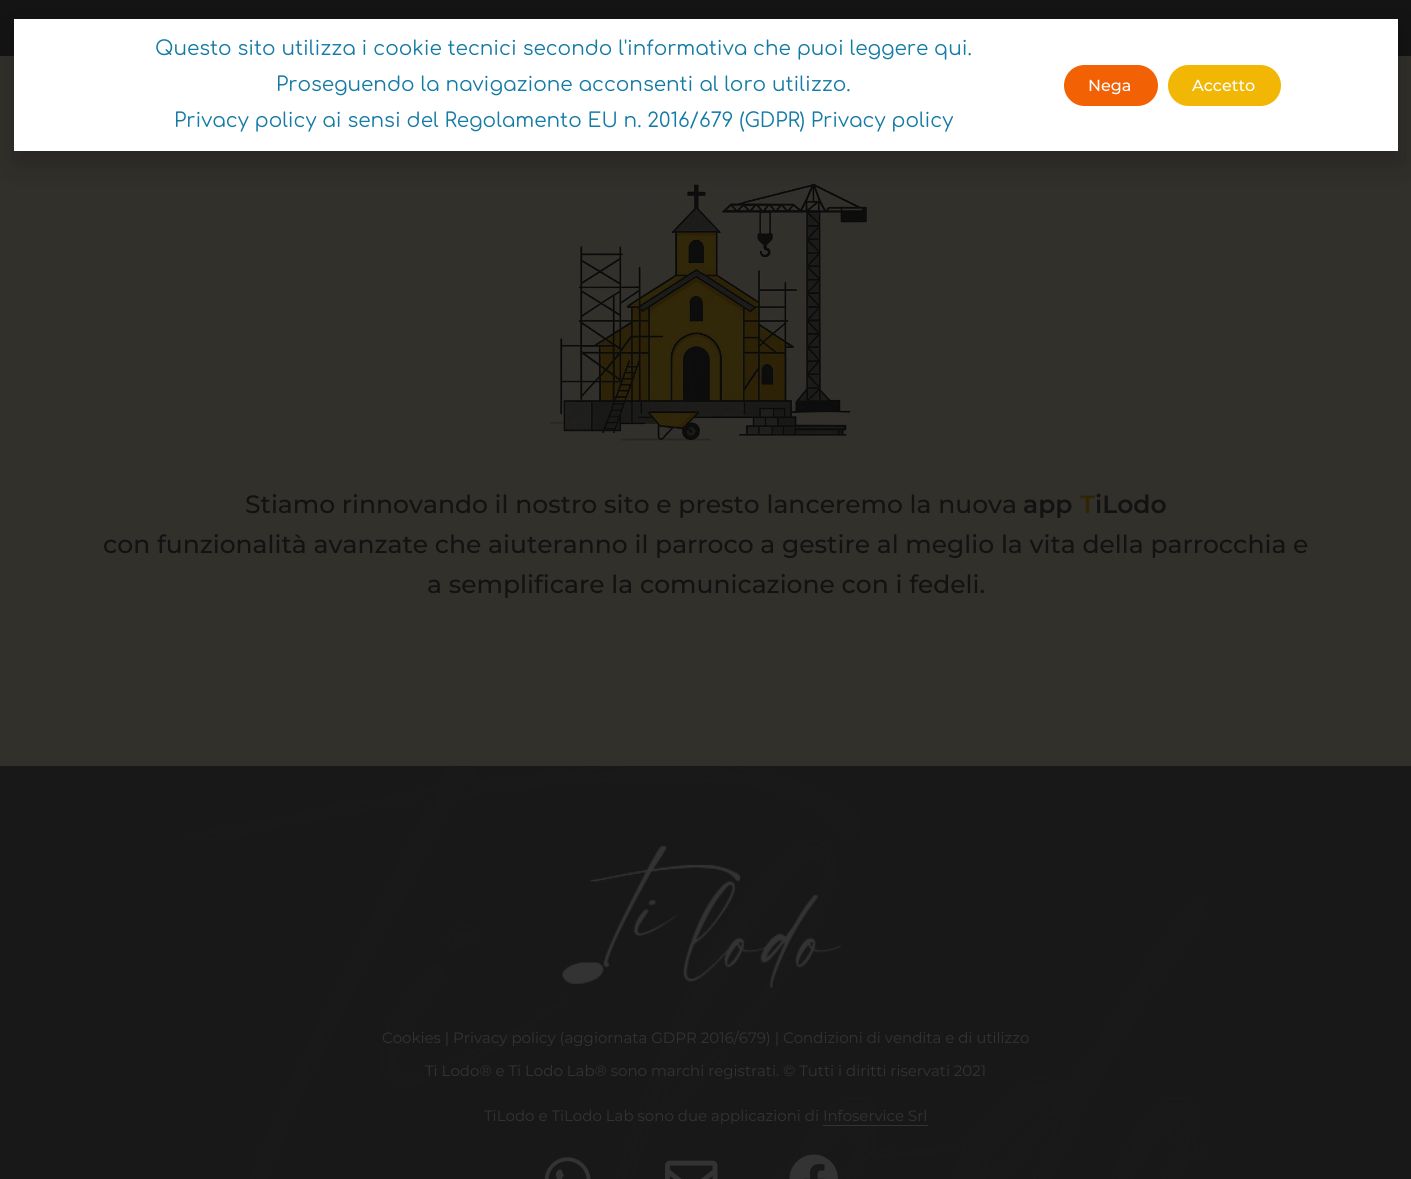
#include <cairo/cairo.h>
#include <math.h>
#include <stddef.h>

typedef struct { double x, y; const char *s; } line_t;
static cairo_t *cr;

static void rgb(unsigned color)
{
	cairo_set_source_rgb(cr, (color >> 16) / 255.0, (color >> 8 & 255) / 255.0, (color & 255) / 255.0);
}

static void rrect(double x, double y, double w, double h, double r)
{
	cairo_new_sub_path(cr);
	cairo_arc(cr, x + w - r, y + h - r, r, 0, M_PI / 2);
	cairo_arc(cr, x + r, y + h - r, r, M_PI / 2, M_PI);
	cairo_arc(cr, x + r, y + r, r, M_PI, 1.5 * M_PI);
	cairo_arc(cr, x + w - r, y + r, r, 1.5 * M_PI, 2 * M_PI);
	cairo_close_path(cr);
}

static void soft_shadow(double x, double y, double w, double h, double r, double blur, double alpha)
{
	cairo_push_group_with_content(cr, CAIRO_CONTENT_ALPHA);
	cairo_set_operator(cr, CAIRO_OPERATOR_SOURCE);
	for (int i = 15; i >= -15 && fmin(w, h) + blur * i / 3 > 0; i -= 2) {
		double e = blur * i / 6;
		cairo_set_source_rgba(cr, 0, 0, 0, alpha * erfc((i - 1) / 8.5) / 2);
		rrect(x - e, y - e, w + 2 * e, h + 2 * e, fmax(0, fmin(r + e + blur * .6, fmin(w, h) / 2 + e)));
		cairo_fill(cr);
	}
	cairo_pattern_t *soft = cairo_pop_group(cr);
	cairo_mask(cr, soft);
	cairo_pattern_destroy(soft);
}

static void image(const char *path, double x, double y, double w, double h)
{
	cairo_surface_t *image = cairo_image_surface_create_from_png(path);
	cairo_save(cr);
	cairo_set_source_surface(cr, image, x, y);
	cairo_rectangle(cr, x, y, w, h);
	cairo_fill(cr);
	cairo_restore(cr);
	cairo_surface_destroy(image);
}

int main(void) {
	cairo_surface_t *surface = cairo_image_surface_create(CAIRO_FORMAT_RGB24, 1411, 1179);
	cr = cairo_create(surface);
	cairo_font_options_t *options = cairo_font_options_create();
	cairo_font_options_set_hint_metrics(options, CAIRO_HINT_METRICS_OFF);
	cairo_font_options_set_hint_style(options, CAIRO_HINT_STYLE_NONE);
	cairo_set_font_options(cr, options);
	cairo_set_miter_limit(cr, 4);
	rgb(0x141414);
	cairo_paint(cr);
	rgb(0x32302b);
	cairo_rectangle(cr, 0, 56, 1411, 710);
	cairo_fill(cr);
	image("img/1.png", 549, 179, 325, 264);
	rgb(0x000000);
	soft_shadow(13, 25, 1391, 140, 0, 14.5, 0.2);
	rgb(0xffffff);
	cairo_rectangle(cr, 14, 19, 1384, 132);
	cairo_fill(cr);
	rgb(0xf26205);
	rrect(1064, 65, 94, 41, 20.5);
	cairo_fill(cr);
	rgb(0xf2b705);
	rrect(1168, 65, 113, 41, 20.5);
	cairo_fill(cr);
	rgb(0x181818);
	cairo_rectangle(cr, 0, 766, 1411, 413);
	cairo_fill(cr);
	image("img/2.png", 189, 767, 1017, 412);
	image("img/3.png", 562, 845, 280, 144);
	rgb(0x333333);
	cairo_rectangle(cr, 823, 1125, 105, 1);
	cairo_fill(cr);
	image("img/4.png", 544, 1157, 47, 22);
	image("img/5.png", 665, 1160, 53, 19);
	image("img/6.png", 789, 1154, 49, 25);
	cairo_select_font_face(cr, "Comfortaa", CAIRO_FONT_SLANT_NORMAL, CAIRO_FONT_WEIGHT_NORMAL);
	cairo_set_font_size(cr, 20);
	rgb(0x147aa6);
	{
		static const line_t items[] = {
			{155, 55, "Questo sito utilizza i cookie tecnici secondo l'informativa che puoi leggere qui."},
			{276, 91, "Proseguendo la navigazione acconsenti al loro utilizzo."},
			{174, 127, "Privacy policy ai sensi del Regolamento EU n. 2016/679 (GDPR) Privacy policy"},
		};
		for (size_t i = 0; i < sizeof items / sizeof *items; i++) {
			cairo_move_to(cr, items[i].x, items[i].y);
			cairo_show_text(cr, items[i].s);
		}
	}
	cairo_select_font_face(cr, "Montserrat Medium", CAIRO_FONT_SLANT_NORMAL, CAIRO_FONT_WEIGHT_NORMAL);
	cairo_set_font_size(cr, 16);
	rgb(0xffffff);
	cairo_move_to(cr, 1088, 91);
	cairo_show_text(cr, "Nega");
	cairo_move_to(cr, 1192, 91);
	cairo_show_text(cr, "Accetto");
	cairo_set_font_size(cr, 25);
	rgb(0x121212);
	cairo_move_to(cr, 245, 513);
	cairo_show_text(cr, "Stiamo rinnovando il nostro sito e presto lanceremo la nuova");
	cairo_select_font_face(cr, "Montserrat SemiBold", CAIRO_FONT_SLANT_NORMAL, CAIRO_FONT_WEIGHT_NORMAL);
	cairo_move_to(cr, 1023, 513);
	cairo_show_text(cr, "app");
	rgb(0x302501);
	cairo_move_to(cr, 1080, 513);
	cairo_show_text(cr, "T");
	rgb(0x121212);
	cairo_move_to(cr, 1095, 513);
	cairo_show_text(cr, "iLodo");
	cairo_select_font_face(cr, "Montserrat Medium", CAIRO_FONT_SLANT_NORMAL, CAIRO_FONT_WEIGHT_NORMAL);
	cairo_move_to(cr, 103, 553);
	cairo_show_text(cr, "con funzionalità avanzate che aiuteranno il parroco a gestire al meglio la vita della parrocchia e");
	cairo_move_to(cr, 427, 593);
	cairo_show_text(cr, "a semplificare la comunicazione con i fedeli.");
	cairo_select_font_face(cr, "Montserrat", CAIRO_FONT_SLANT_NORMAL, CAIRO_FONT_WEIGHT_NORMAL);
	cairo_set_font_size(cr, 15);
	rgb(0x333333);
	{
		static const line_t items[] = {
			{382, 1043, "Cookies | Privacy policy (aggiornata GDPR 2016/679) | Condizioni di vendita e di utilizzo"},
			{425, 1076, "Ti Lodo® e Ti Lodo Lab® sono marchi registrati. © Tutti i diritti riservati 2021"},
			{484, 1121, "TiLodo e TiLodo Lab sono due applicazioni di Infoservice Srl"},
		};
		for (size_t i = 0; i < sizeof items / sizeof *items; i++) {
			cairo_move_to(cr, items[i].x, items[i].y);
			cairo_show_text(cr, items[i].s);
		}
	}
	cairo_surface_write_to_png(surface, "page.png");
	cairo_font_options_destroy(options);
	cairo_destroy(cr);
	cairo_surface_destroy(surface);
	return 0;
}
